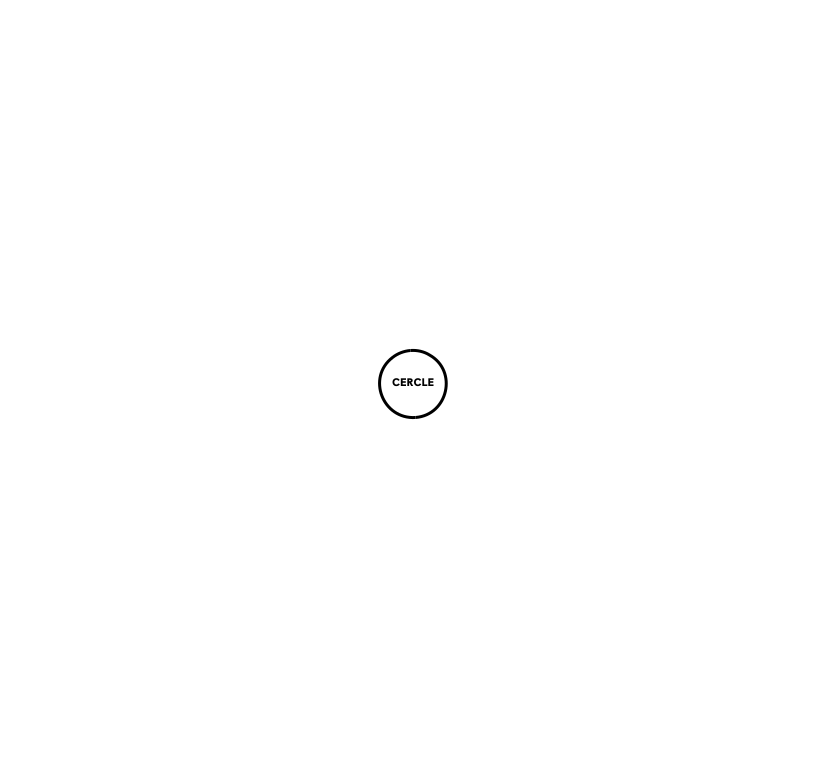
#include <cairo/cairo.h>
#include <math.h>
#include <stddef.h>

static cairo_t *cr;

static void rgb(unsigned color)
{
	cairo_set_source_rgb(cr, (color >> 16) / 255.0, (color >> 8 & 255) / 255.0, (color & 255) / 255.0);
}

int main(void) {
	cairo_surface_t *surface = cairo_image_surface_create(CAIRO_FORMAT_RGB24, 826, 768);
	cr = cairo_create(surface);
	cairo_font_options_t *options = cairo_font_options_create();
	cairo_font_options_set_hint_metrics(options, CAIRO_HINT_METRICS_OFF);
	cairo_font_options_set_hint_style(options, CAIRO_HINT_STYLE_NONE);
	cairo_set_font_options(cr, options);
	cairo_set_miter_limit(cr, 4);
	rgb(0xffffff);
	cairo_paint(cr);
	cairo_new_path(cr);
	cairo_move_to(cr, 410.5, 350.5);
	cairo_curve_to(cr, 417, 350, 424, 351.5, 429.5, 355);
	cairo_curve_to(cr, 458, 371, 448, 415, 415.5, 417.5);
	rgb(0x000000);
	cairo_set_line_width(cr, 3);
	cairo_stroke(cr);
	cairo_new_path(cr);
	cairo_move_to(cr, 415.5, 417.5);
	cairo_curve_to(cr, 382.5, 419.5, 366.5, 377.5, 392.5, 357.5);
	cairo_curve_to(cr, 397.5, 353.5, 404, 351, 410.5, 350.5);
	cairo_stroke(cr);
	cairo_select_font_face(cr, "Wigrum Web", CAIRO_FONT_SLANT_NORMAL, CAIRO_FONT_WEIGHT_BOLD);
	cairo_set_font_size(cr, 11);
	cairo_move_to(cr, 392, 386);
	cairo_show_text(cr, "CERCLE");
	cairo_surface_write_to_png(surface, "page.png");
	cairo_font_options_destroy(options);
	cairo_destroy(cr);
	cairo_surface_destroy(surface);
	return 0;
}
